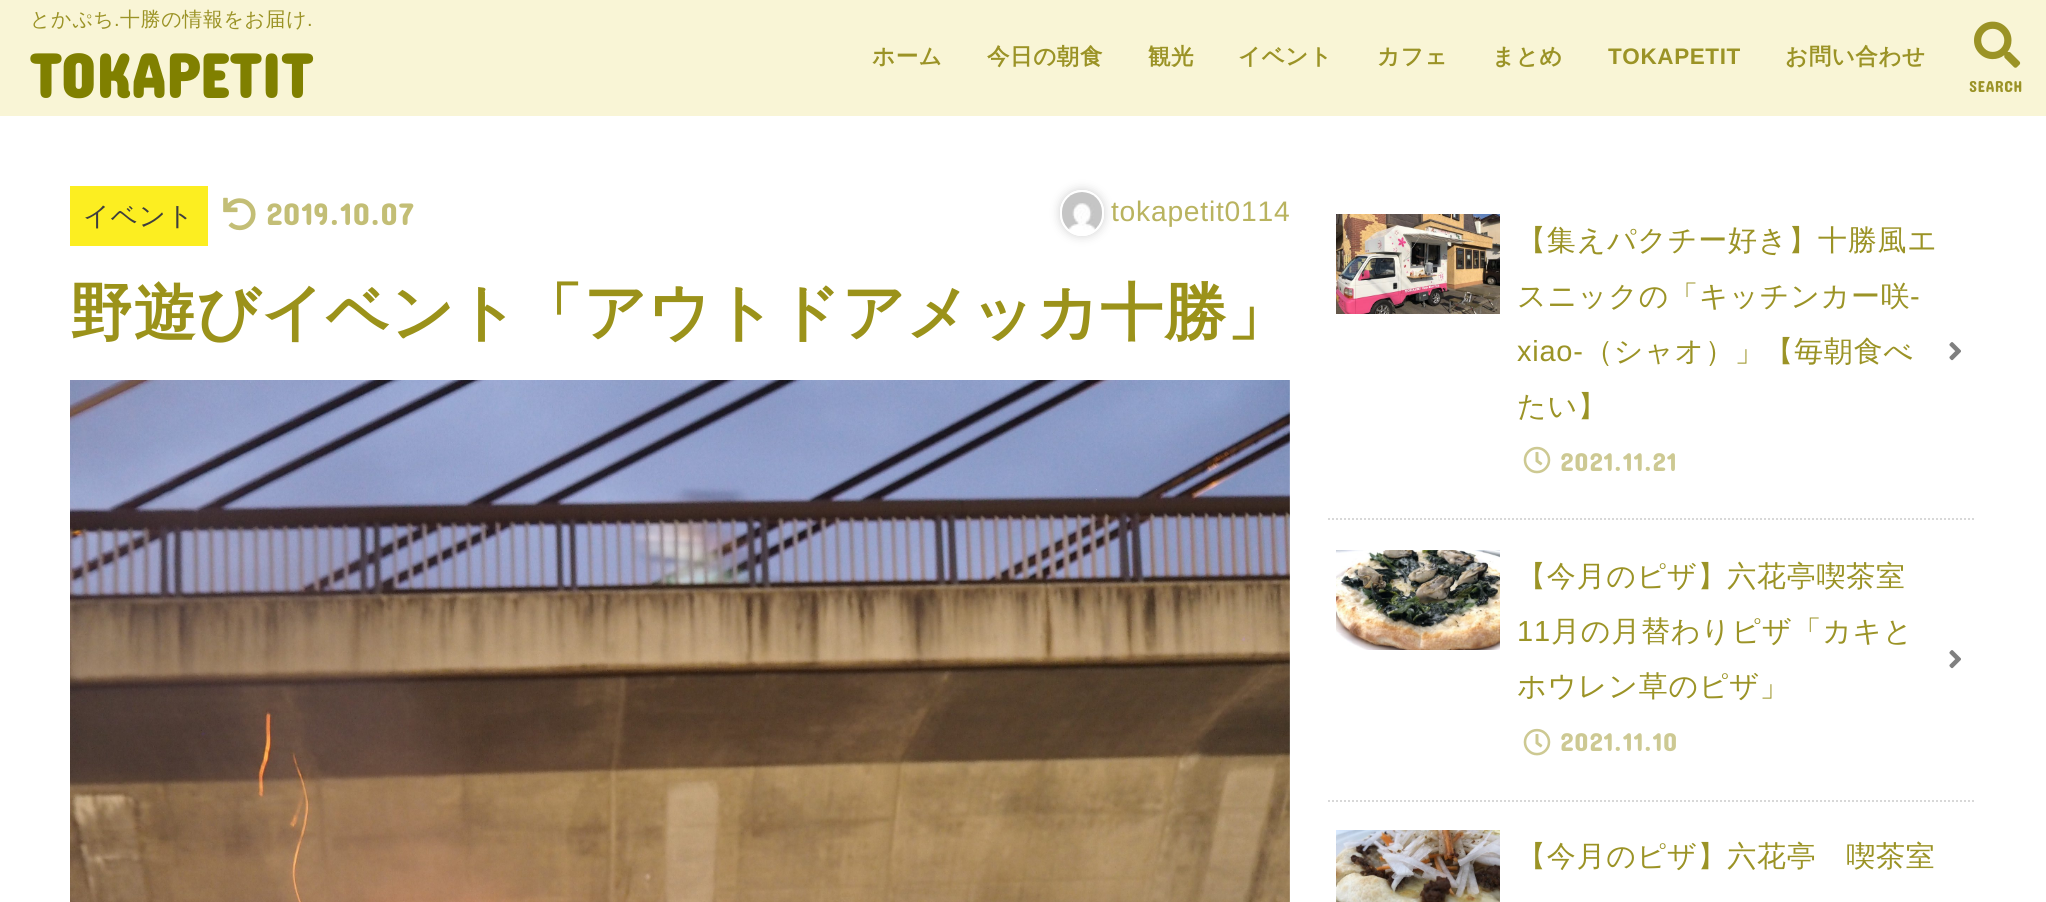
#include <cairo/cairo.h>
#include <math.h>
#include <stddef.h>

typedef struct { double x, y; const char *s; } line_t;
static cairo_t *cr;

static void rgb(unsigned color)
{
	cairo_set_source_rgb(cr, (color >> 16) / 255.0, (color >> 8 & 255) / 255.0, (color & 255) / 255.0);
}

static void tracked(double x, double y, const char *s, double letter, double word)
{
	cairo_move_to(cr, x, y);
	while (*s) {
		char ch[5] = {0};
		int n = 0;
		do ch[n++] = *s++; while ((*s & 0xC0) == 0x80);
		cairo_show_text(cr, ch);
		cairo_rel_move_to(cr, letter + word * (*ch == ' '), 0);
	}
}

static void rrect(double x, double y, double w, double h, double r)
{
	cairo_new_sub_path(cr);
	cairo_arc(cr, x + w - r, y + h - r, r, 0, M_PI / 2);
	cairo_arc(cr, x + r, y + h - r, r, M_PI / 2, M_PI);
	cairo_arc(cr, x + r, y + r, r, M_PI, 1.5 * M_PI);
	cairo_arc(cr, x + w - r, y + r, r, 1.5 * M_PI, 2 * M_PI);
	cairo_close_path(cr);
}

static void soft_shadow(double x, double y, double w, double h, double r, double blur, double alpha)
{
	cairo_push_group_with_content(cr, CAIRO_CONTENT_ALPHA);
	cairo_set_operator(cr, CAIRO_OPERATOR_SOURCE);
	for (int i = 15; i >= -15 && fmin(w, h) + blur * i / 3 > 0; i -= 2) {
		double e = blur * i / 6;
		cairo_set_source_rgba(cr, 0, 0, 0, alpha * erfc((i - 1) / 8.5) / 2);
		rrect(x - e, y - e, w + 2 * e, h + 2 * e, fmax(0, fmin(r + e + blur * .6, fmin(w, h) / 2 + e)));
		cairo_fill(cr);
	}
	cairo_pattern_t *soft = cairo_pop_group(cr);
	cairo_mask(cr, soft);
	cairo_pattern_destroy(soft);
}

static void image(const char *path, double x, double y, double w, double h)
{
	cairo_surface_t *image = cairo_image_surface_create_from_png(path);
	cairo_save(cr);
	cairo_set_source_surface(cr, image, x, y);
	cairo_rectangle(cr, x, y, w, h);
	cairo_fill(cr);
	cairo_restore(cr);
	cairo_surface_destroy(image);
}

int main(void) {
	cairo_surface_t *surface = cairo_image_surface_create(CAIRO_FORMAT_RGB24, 2046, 902);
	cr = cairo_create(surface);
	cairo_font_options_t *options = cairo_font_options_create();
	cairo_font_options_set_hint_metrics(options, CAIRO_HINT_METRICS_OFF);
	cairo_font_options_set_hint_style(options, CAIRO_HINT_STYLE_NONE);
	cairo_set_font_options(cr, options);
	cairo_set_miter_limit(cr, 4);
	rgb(0xffffff);
	cairo_paint(cr);
	rgb(0xf9f5d6);
	cairo_rectangle(cr, 0, 0, 2046, 116);
	cairo_fill(cr);
	image("img/1.png", 1974, 21, 47, 47);
	rgb(0xfcee21);
	cairo_rectangle(cr, 70, 186, 138, 60);
	cairo_fill(cr);
	image("img/2.png", 223, 197, 33, 34);
	cairo_save(cr);
	cairo_set_fill_rule(cr, CAIRO_FILL_RULE_EVEN_ODD);
	cairo_new_path(cr);
	cairo_move_to(cr, 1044, 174);
	cairo_line_to(cr, 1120, 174);
	cairo_line_to(cr, 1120, 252);
	cairo_line_to(cr, 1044, 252);
	cairo_close_path(cr);
	cairo_move_to(cr, 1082, 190);
	cairo_curve_to(cr, 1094, 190, 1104, 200, 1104, 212);
	cairo_line_to(cr, 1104, 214);
	cairo_curve_to(cr, 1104, 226, 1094, 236, 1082, 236);
	cairo_curve_to(cr, 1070, 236, 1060, 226, 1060, 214);
	cairo_line_to(cr, 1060, 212);
	cairo_curve_to(cr, 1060, 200, 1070, 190, 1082, 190);
	cairo_close_path(cr);
	cairo_clip(cr);
	rgb(0x666666);
	soft_shadow(1060, 190, 44, 46, 22, 5, 0.3);
	cairo_restore(cr);
	rrect(1061, 191, 42, 44, 21);
	rgb(0xffffff);
	cairo_stroke(cr);
	image("img/3.png", 1062, 192, 40, 38);
	image("img/4.png", 70, 380, 1220, 522);
	cairo_new_path(cr);
	cairo_move_to(cr, 1328, 519);
	cairo_line_to(cr, 1976, 519);
	rgb(0xd8d8d8);
	cairo_set_dash(cr, (double[]){2, 2}, 2, 0);
	cairo_stroke(cr);
	image("img/5.png", 1336, 214, 164, 100);
	image("img/6.png", 1523, 446, 28, 28);
	image("img/7.png", 1949, 342, 12, 19);
	cairo_new_path(cr);
	cairo_move_to(cr, 1328, 801);
	cairo_line_to(cr, 1976, 801);
	cairo_stroke(cr);
	image("img/8.png", 1336, 550, 164, 100);
	image("img/9.png", 1523, 728, 28, 28);
	image("img/7.png", 1949, 650, 12, 19);
	image("img/10.png", 1336, 830, 164, 72);
	cairo_select_font_face(cr, "WenQuanYi Zen Hei Medium", CAIRO_FONT_SLANT_NORMAL, CAIRO_FONT_WEIGHT_NORMAL);
	cairo_set_font_size(cr, 20);
	rgb(0x9b9326);
	tracked(30, 26, "とかぷち", 0.6, 0);
	cairo_select_font_face(cr, "Liberation Sans", CAIRO_FONT_SLANT_NORMAL, CAIRO_FONT_WEIGHT_NORMAL);
	tracked(114, 26, ".", 0.6, 0);
	cairo_select_font_face(cr, "WenQuanYi Zen Hei Medium", CAIRO_FONT_SLANT_NORMAL, CAIRO_FONT_WEIGHT_NORMAL);
	tracked(120, 26, "十勝の情報をお届け", 0.6, 0);
	cairo_select_font_face(cr, "Liberation Sans", CAIRO_FONT_SLANT_NORMAL, CAIRO_FONT_WEIGHT_NORMAL);
	tracked(307, 26, ".", 0.6, 0);
	cairo_select_font_face(cr, "Concert One", CAIRO_FONT_SLANT_NORMAL, CAIRO_FONT_WEIGHT_BOLD);
	cairo_set_font_size(cr, 62.6);
	rgb(0x808000);
	tracked(30, 98, "TOKAPETIT", 0.6, 0);
	cairo_select_font_face(cr, "WenQuanYi Zen Hei", CAIRO_FONT_SLANT_NORMAL, CAIRO_FONT_WEIGHT_BOLD);
	cairo_set_font_size(cr, 22.5);
	rgb(0x9b9326);
	{
		static const line_t items[] = {
			{872, 64, "ホーム"},
			{987, 64, "今日の朝食"},
			{1148, 64, "観光"},
			{1238, 64, "イベント"},
			{1377, 64, "カフェ"},
			{1492, 64, "まとめ"},
		};
		for (size_t i = 0; i < sizeof items / sizeof *items; i++) {
			tracked(items[i].x, items[i].y, items[i].s, 0.6, 0);
		}
	}
	cairo_select_font_face(cr, "Liberation Sans", CAIRO_FONT_SLANT_NORMAL, CAIRO_FONT_WEIGHT_BOLD);
	tracked(1608, 64, "TOKAPETIT", 0.6, 0);
	cairo_select_font_face(cr, "WenQuanYi Zen Hei", CAIRO_FONT_SLANT_NORMAL, CAIRO_FONT_WEIGHT_BOLD);
	tracked(1785, 64, "お問い合わせ", 0.6, 0);
	cairo_select_font_face(cr, "Concert One", CAIRO_FONT_SLANT_NORMAL, CAIRO_FONT_WEIGHT_NORMAL);
	cairo_set_font_size(cr, 16);
	tracked(1969, 92, "SEARCH", 0.5, 0);
	cairo_select_font_face(cr, "WenQuanYi Zen Hei Medium", CAIRO_FONT_SLANT_NORMAL, CAIRO_FONT_WEIGHT_NORMAL);
	cairo_set_font_size(cr, 26.5);
	rgb(0x3e3e3e);
	tracked(83, 225, "イベント", 0.75, 0);
	cairo_select_font_face(cr, "Concert One", CAIRO_FONT_SLANT_NORMAL, CAIRO_FONT_WEIGHT_NORMAL);
	cairo_set_font_size(cr, 31.5);
	rgb(0xc3be76);
	tracked(266, 225, "2019.10.07", 0.75, 0);
	cairo_select_font_face(cr, "Liberation Sans", CAIRO_FONT_SLANT_NORMAL, CAIRO_FONT_WEIGHT_NORMAL);
	cairo_set_font_size(cr, 28.25);
	rgb(0xb9b35f);
	tracked(1111, 221, "tokapetit0114", 0.75, 0);
	cairo_select_font_face(cr, "WenQuanYi Zen Hei", CAIRO_FONT_SLANT_NORMAL, CAIRO_FONT_WEIGHT_BOLD);
	cairo_set_font_size(cr, 62.6);
	rgb(0x9b921a);
	tracked(70, 334, "野遊びイベント「アウトドアメッカ十勝」", 0.6, 0);
	cairo_select_font_face(cr, "WenQuanYi Zen Hei Medium", CAIRO_FONT_SLANT_NORMAL, CAIRO_FONT_WEIGHT_NORMAL);
	cairo_set_font_size(cr, 29);
	rgb(0x9b9326);
	tracked(1517, 250, "【集えパクチー好き】十勝風エ", 0.75, 0);
	tracked(1517, 306, "スニックの「キッチンカー咲", 0.75, 0);
	cairo_select_font_face(cr, "Liberation Sans", CAIRO_FONT_SLANT_NORMAL, CAIRO_FONT_WEIGHT_NORMAL);
	tracked(1910, 306, "-", 0.75, 0);
	tracked(1517, 361, "xiao-", 0.75, 0);
	cairo_select_font_face(cr, "WenQuanYi Zen Hei Medium", CAIRO_FONT_SLANT_NORMAL, CAIRO_FONT_WEIGHT_NORMAL);
	tracked(1584, 361, "（シャオ）」【毎朝食べ", 0.75, 0);
	tracked(1517, 416, "たい】", 0.75, 0);
	cairo_select_font_face(cr, "Concert One", CAIRO_FONT_SLANT_NORMAL, CAIRO_FONT_WEIGHT_NORMAL);
	cairo_set_font_size(cr, 26);
	rgb(0xcdc993);
	tracked(1560, 471, "2021.11.21", 0.75, 0);
	cairo_select_font_face(cr, "WenQuanYi Zen Hei Medium", CAIRO_FONT_SLANT_NORMAL, CAIRO_FONT_WEIGHT_NORMAL);
	cairo_set_font_size(cr, 29);
	rgb(0x9b9326);
	tracked(1517, 586, "【今月のピザ】六花亭喫茶室", 0.75, 0);
	cairo_select_font_face(cr, "Liberation Sans", CAIRO_FONT_SLANT_NORMAL, CAIRO_FONT_WEIGHT_NORMAL);
	tracked(1517, 641, "11", 0.75, 0);
	cairo_select_font_face(cr, "WenQuanYi Zen Hei Medium", CAIRO_FONT_SLANT_NORMAL, CAIRO_FONT_WEIGHT_NORMAL);
	tracked(1551, 641, "月の月替わりピザ「カキと", 0.75, 0);
	tracked(1517, 696, "ホウレン草のピザ」", 0.75, 0);
	cairo_select_font_face(cr, "Concert One", CAIRO_FONT_SLANT_NORMAL, CAIRO_FONT_WEIGHT_NORMAL);
	cairo_set_font_size(cr, 26);
	rgb(0xcdc993);
	tracked(1560, 751, "2021.11.10", 0.75, 0);
	cairo_select_font_face(cr, "WenQuanYi Zen Hei Medium", CAIRO_FONT_SLANT_NORMAL, CAIRO_FONT_WEIGHT_NORMAL);
	cairo_set_font_size(cr, 29);
	rgb(0x9b9326);
	tracked(1517, 866, "【今月のピザ】六花亭　喫茶室", 0.75, 0);
	cairo_surface_write_to_png(surface, "page.png");
	cairo_font_options_destroy(options);
	cairo_destroy(cr);
	cairo_surface_destroy(surface);
	return 0;
}
